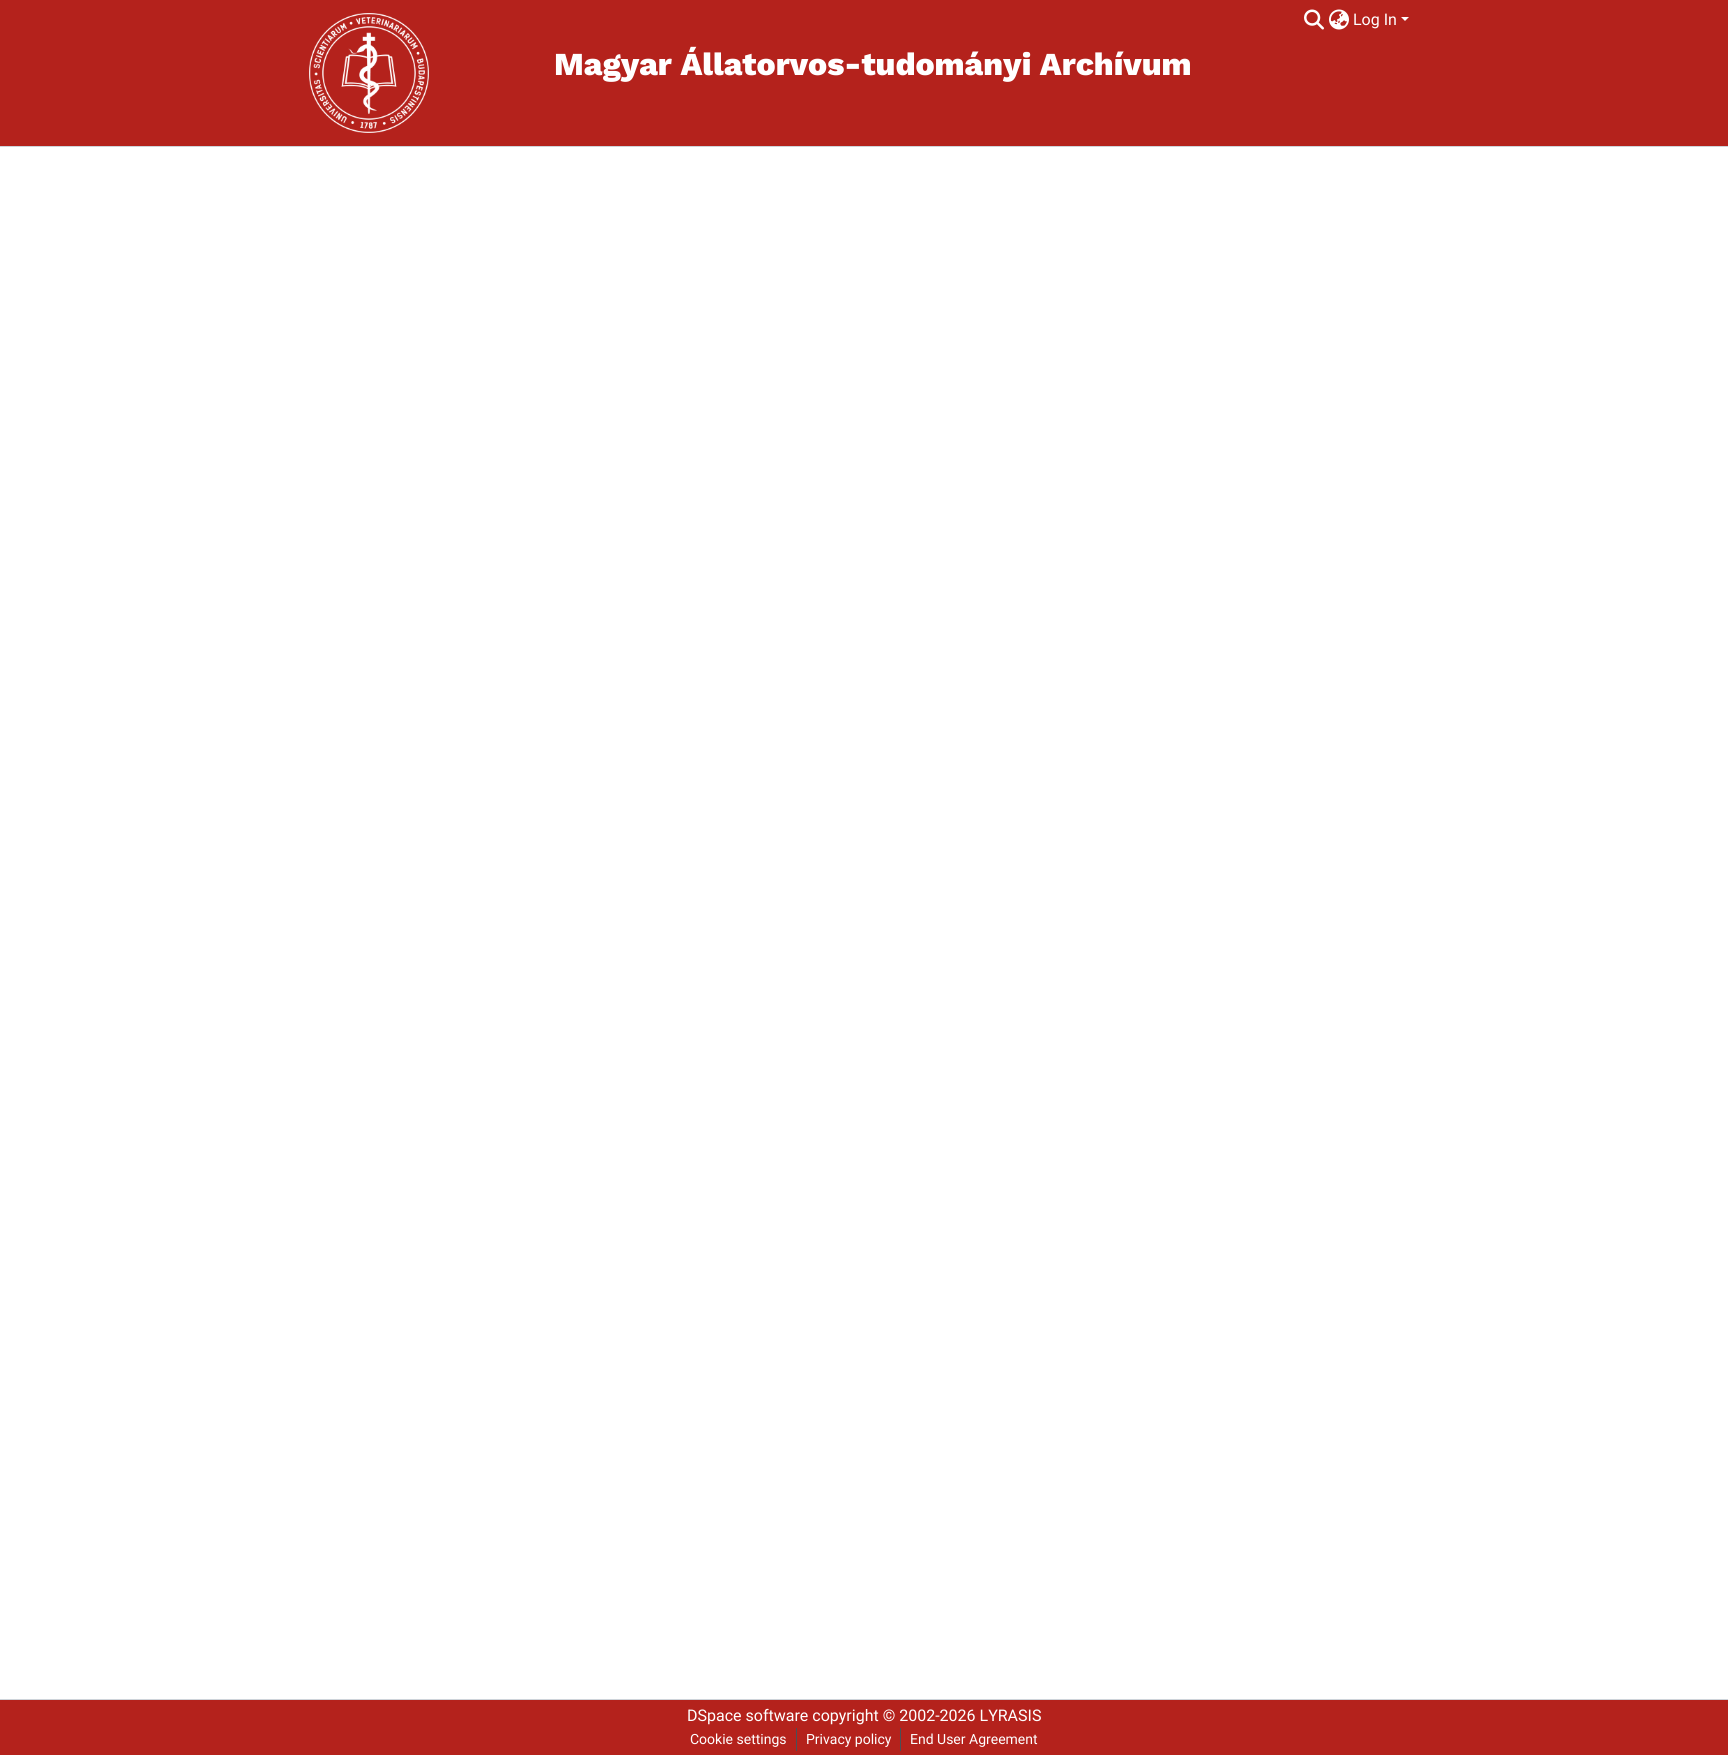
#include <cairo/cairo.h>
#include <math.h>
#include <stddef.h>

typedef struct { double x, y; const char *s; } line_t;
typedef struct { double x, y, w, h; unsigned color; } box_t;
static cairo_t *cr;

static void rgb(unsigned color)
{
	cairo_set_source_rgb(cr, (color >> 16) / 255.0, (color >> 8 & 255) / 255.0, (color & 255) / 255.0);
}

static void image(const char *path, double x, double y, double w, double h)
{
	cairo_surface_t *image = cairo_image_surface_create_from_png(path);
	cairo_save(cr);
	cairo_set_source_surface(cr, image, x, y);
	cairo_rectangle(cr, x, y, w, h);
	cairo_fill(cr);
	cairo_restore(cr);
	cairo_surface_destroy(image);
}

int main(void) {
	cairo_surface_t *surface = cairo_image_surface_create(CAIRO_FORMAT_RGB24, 1728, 1755);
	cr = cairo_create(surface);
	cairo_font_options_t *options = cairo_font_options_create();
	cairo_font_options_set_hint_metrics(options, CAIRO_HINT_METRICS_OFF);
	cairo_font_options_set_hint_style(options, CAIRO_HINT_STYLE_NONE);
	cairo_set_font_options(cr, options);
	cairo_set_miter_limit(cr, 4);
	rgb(0xffffff);
	cairo_paint(cr);
	rgb(0xced4da);
	cairo_rectangle(cr, 0, 146, 1728, 1);
	cairo_fill(cr);
	rgb(0xb4221c);
	cairo_rectangle(cr, 0, 0, 1728, 146);
	cairo_fill(cr);
	image("img/1.png", 309, 13, 120, 120);
	image("img/2.png", 1304, 9, 20, 21);
	image("img/3.png", 1329, 9, 20, 21);
	rgb(0xffffff);
	cairo_new_path(cr);
	cairo_move_to(cr, 1401, 17);
	cairo_line_to(cr, 1409, 17);
	cairo_line_to(cr, 1405, 21);
	cairo_close_path(cr);
	cairo_fill(cr);
	{
		static const box_t items[] = {
			{0, 1700, 1728, 55, 0xb4221c},
			{0, 1699, 1728, 1, 0xced4da},
			{796, 1728, 1, 23, 0x495057},
			{900, 1728, 1, 23, 0x495057},
		};
		for (size_t i = 0; i < sizeof items / sizeof *items; i++) {
			rgb(items[i].color);
			cairo_rectangle(cr, items[i].x, items[i].y, items[i].w, items[i].h);
			cairo_fill(cr);
		}
	}
	cairo_select_font_face(cr, "Roboto", CAIRO_FONT_SLANT_NORMAL, CAIRO_FONT_WEIGHT_NORMAL);
	cairo_set_font_size(cr, 16);
	rgb(0xffffff);
	cairo_move_to(cr, 1353, 25);
	cairo_show_text(cr, "Log In");
	cairo_select_font_face(cr, "Work Sans ExtraBold", CAIRO_FONT_SLANT_NORMAL, CAIRO_FONT_WEIGHT_NORMAL);
	cairo_set_font_size(cr, 32);
	cairo_move_to(cr, 554, 75);
	cairo_show_text(cr, "Magyar Állatorvos-tudományi Archívum");
	cairo_select_font_face(cr, "Roboto", CAIRO_FONT_SLANT_NORMAL, CAIRO_FONT_WEIGHT_NORMAL);
	cairo_set_font_size(cr, 16);
	cairo_move_to(cr, 687, 1721);
	cairo_show_text(cr, "DSpace software copyright © 2002-2026 LYRASIS");
	cairo_set_font_size(cr, 14);
	{
		static const line_t items[] = {
			{690, 1744, "Cookie settings"},
			{806, 1744, "Privacy policy"},
			{910, 1744, "End User Agreement"},
		};
		for (size_t i = 0; i < sizeof items / sizeof *items; i++) {
			cairo_move_to(cr, items[i].x, items[i].y);
			cairo_show_text(cr, items[i].s);
		}
	}
	cairo_surface_write_to_png(surface, "page.png");
	cairo_font_options_destroy(options);
	cairo_destroy(cr);
	cairo_surface_destroy(surface);
	return 0;
}
